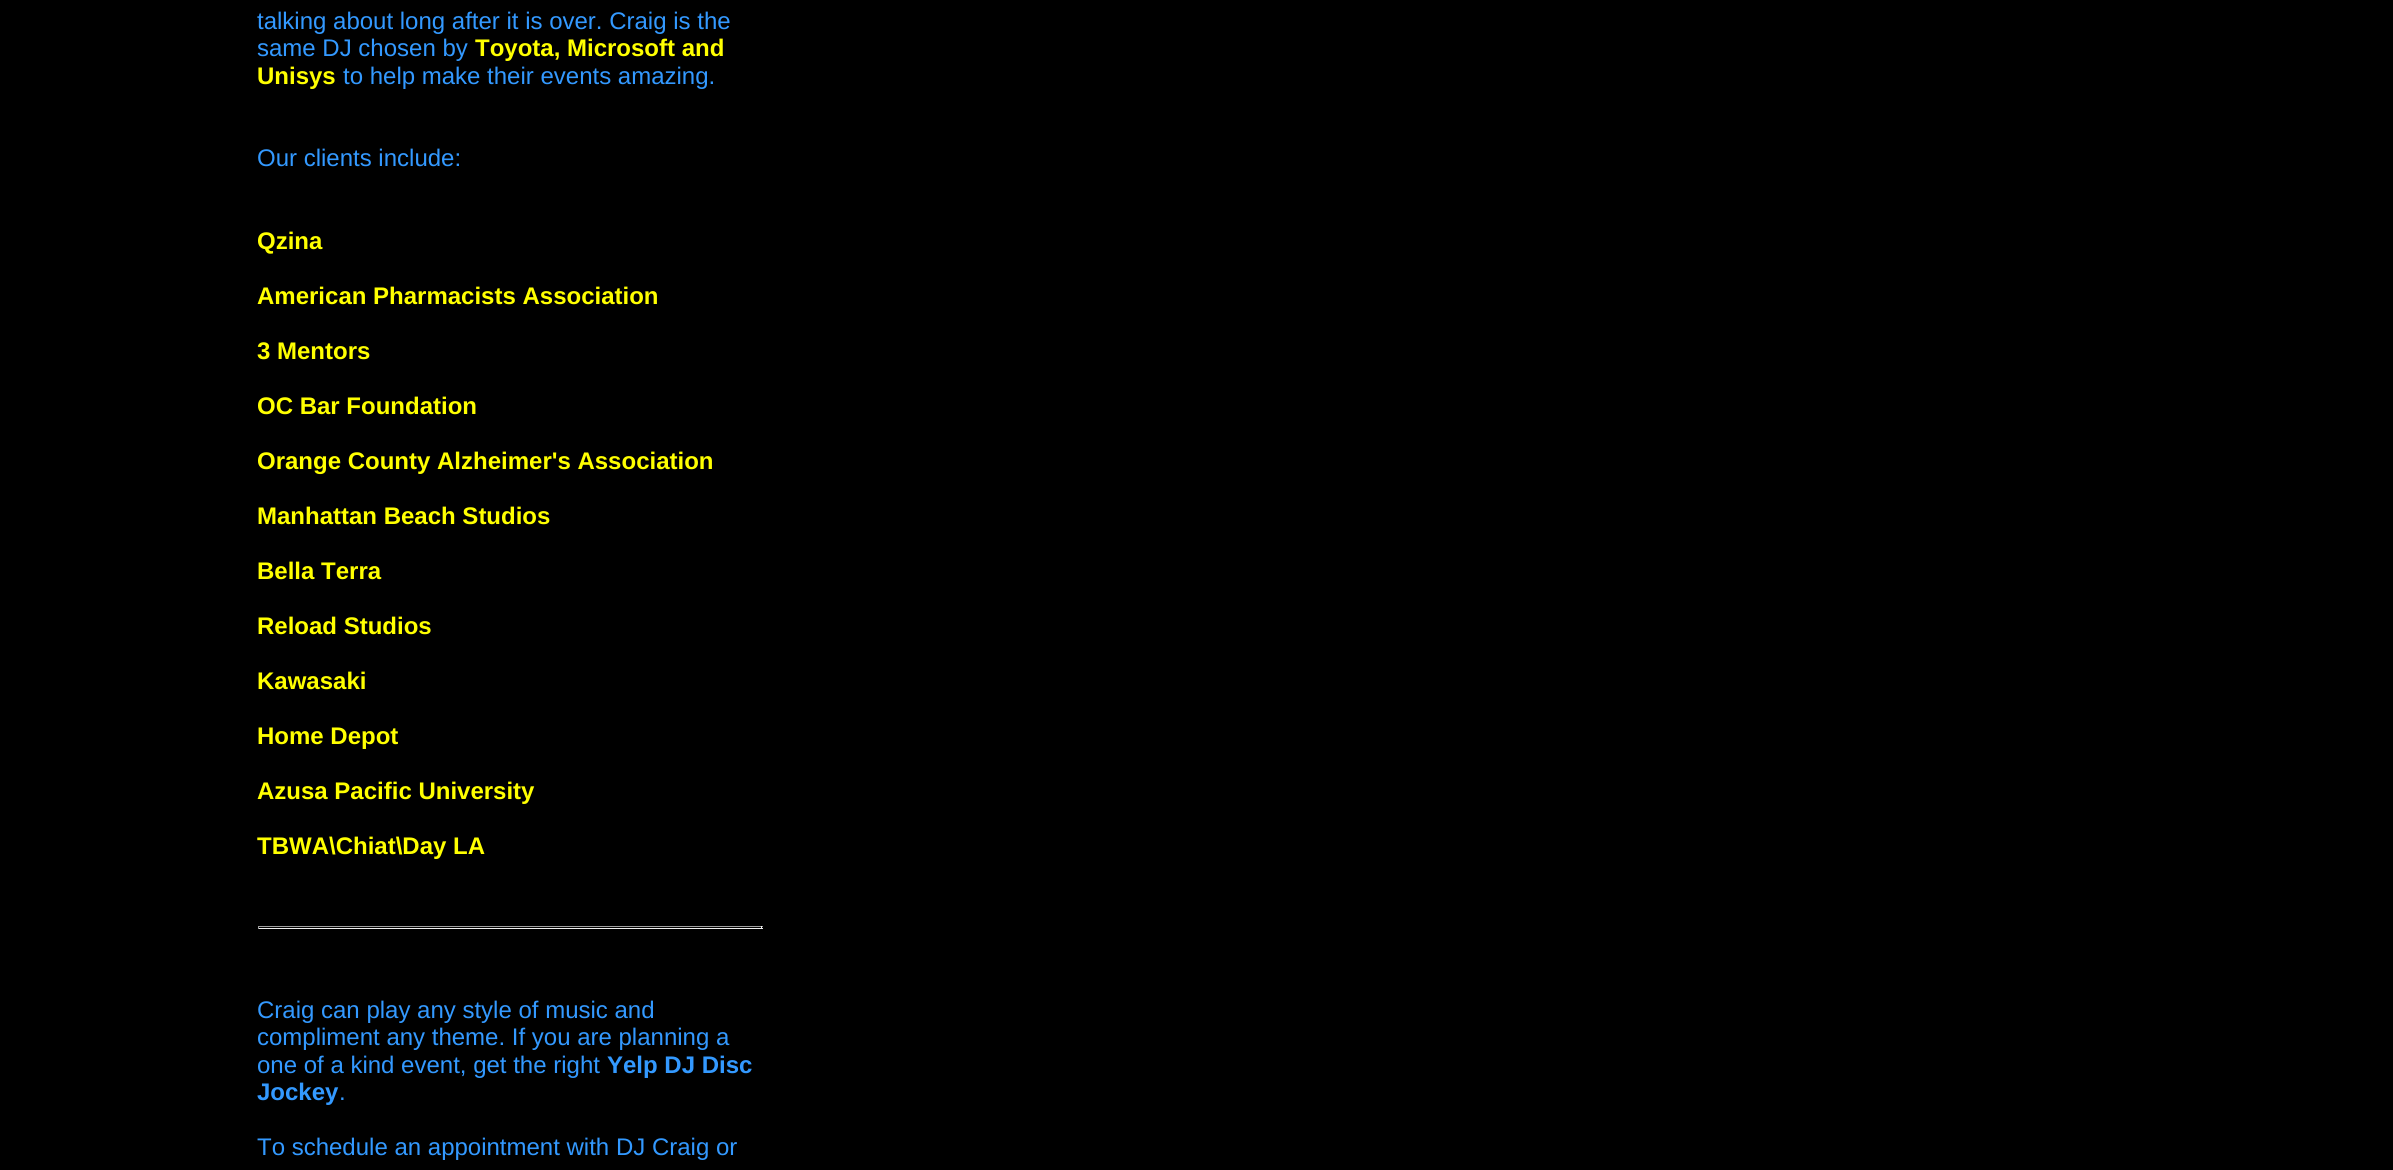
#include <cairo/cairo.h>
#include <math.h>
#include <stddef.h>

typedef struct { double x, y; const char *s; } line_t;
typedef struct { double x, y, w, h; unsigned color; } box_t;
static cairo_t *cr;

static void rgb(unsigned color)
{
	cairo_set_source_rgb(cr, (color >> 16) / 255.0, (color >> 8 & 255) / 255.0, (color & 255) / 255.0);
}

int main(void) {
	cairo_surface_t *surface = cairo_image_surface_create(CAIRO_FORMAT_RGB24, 2393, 1170);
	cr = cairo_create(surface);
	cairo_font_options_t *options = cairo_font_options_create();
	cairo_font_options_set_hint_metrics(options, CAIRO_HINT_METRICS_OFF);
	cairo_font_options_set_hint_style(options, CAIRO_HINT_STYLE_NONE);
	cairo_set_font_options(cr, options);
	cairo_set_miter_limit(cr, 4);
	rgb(0x000000);
	cairo_paint(cr);
	{
		static const box_t items[] = {
			{258, 926, 505, 1, 0x9f9f9f},
			{761, 926, 1, 3, 0xeeeeee},
			{258, 928, 505, 1, 0xeeeeee},
			{258, 926, 1, 3, 0x9f9f9f},
		};
		for (size_t i = 0; i < sizeof items / sizeof *items; i++) {
			rgb(items[i].color);
			cairo_rectangle(cr, items[i].x, items[i].y, items[i].w, items[i].h);
			cairo_fill(cr);
		}
	}
	cairo_select_font_face(cr, "Liberation Sans", CAIRO_FONT_SLANT_NORMAL, CAIRO_FONT_WEIGHT_NORMAL);
	cairo_set_font_size(cr, 24);
	rgb(0x3399ff);
	cairo_move_to(cr, 257, 29);
	cairo_show_text(cr, "talking about long after it is over. Craig is the");
	cairo_move_to(cr, 257, 56);
	cairo_show_text(cr, "same DJ chosen by");
	cairo_select_font_face(cr, "Liberation Sans", CAIRO_FONT_SLANT_NORMAL, CAIRO_FONT_WEIGHT_BOLD);
	rgb(0xffff00);
	cairo_move_to(cr, 475, 56);
	cairo_show_text(cr, "Toyota, Microsoft and");
	cairo_move_to(cr, 257, 84);
	cairo_show_text(cr, "Unisys");
	cairo_select_font_face(cr, "Liberation Sans", CAIRO_FONT_SLANT_NORMAL, CAIRO_FONT_WEIGHT_NORMAL);
	rgb(0x3399ff);
	cairo_move_to(cr, 343, 84);
	cairo_show_text(cr, "to help make their events amazing.");
	cairo_move_to(cr, 257, 166);
	cairo_show_text(cr, "Our clients include:");
	cairo_select_font_face(cr, "Liberation Sans", CAIRO_FONT_SLANT_NORMAL, CAIRO_FONT_WEIGHT_BOLD);
	rgb(0xffff00);
	{
		static const line_t items[] = {
			{257, 249, "Qzina"},
			{257, 304, "American Pharmacists Association"},
			{257, 359, "3 Mentors"},
			{257, 414, "OC Bar Foundation"},
			{257, 469, "Orange County Alzheimer's Association"},
			{257, 524, "Manhattan Beach Studios"},
			{257, 579, "Bella Terra"},
			{257, 634, "Reload Studios"},
			{257, 689, "Kawasaki"},
			{257, 744, "Home Depot"},
			{257, 799, "Azusa Pacific University"},
			{257, 854, "TBWA\\Chiat\\Day LA"},
		};
		for (size_t i = 0; i < sizeof items / sizeof *items; i++) {
			cairo_move_to(cr, items[i].x, items[i].y);
			cairo_show_text(cr, items[i].s);
		}
	}
	cairo_select_font_face(cr, "Liberation Sans", CAIRO_FONT_SLANT_NORMAL, CAIRO_FONT_WEIGHT_NORMAL);
	rgb(0x3399ff);
	{
		static const line_t items[] = {
			{257, 1018, "Craig can play any style of music and"},
			{257, 1045, "compliment any theme. If you are planning a"},
			{257, 1073, "one of a kind event, get the right"},
		};
		for (size_t i = 0; i < sizeof items / sizeof *items; i++) {
			cairo_move_to(cr, items[i].x, items[i].y);
			cairo_show_text(cr, items[i].s);
		}
	}
	cairo_select_font_face(cr, "Liberation Sans", CAIRO_FONT_SLANT_NORMAL, CAIRO_FONT_WEIGHT_BOLD);
	cairo_move_to(cr, 607, 1073);
	cairo_show_text(cr, "Yelp DJ Disc");
	cairo_move_to(cr, 257, 1100);
	cairo_show_text(cr, "Jockey");
	cairo_select_font_face(cr, "Liberation Sans", CAIRO_FONT_SLANT_NORMAL, CAIRO_FONT_WEIGHT_NORMAL);
	cairo_move_to(cr, 339, 1100);
	cairo_show_text(cr, ".");
	cairo_move_to(cr, 257, 1155);
	cairo_show_text(cr, "To schedule an appointment with DJ Craig or");
	cairo_surface_write_to_png(surface, "page.png");
	cairo_font_options_destroy(options);
	cairo_destroy(cr);
	cairo_surface_destroy(surface);
	return 0;
}
